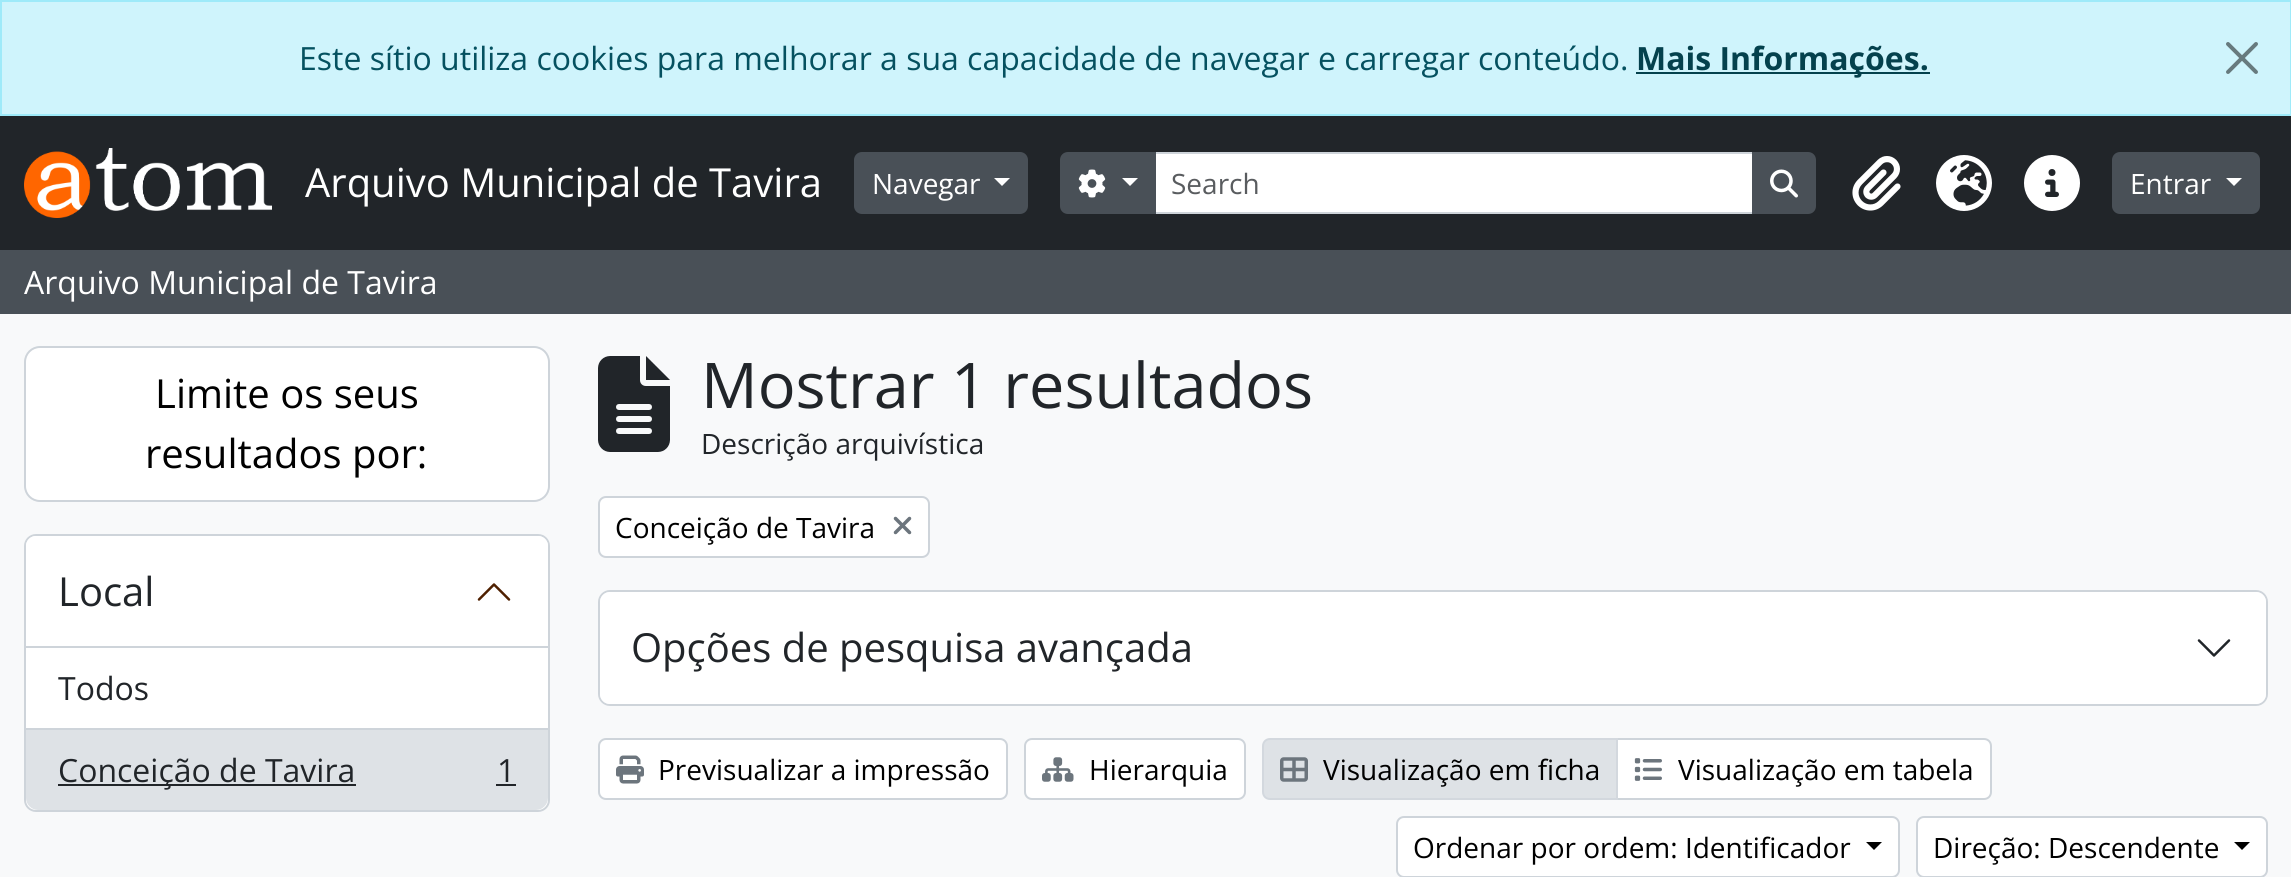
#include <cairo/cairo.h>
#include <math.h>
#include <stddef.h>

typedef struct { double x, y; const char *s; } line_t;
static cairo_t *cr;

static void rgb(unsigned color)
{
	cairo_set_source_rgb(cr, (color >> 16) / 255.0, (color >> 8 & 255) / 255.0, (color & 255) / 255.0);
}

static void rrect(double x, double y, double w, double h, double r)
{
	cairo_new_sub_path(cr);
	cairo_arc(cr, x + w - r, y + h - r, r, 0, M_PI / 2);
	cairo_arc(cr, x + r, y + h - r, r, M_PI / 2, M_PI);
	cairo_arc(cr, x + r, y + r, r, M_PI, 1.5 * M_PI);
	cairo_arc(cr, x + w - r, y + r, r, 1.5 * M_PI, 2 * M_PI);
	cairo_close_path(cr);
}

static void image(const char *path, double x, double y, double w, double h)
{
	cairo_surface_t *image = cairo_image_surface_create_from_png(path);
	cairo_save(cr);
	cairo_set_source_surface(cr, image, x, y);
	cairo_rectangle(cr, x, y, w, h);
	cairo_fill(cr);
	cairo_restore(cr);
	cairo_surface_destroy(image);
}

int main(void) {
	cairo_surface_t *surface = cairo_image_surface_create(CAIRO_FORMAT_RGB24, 2291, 877);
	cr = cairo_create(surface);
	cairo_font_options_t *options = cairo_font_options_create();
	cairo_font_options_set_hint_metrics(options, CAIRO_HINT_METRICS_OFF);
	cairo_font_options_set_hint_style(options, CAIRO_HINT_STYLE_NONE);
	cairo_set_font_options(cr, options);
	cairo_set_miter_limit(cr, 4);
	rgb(0xf8f9fa);
	cairo_paint(cr);
	rgb(0xcff4fc);
	cairo_rectangle(cr, 1, 1, 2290, 114);
	cairo_fill_preserve(cr);
	rgb(0x9eeaf9);
	cairo_stroke(cr);
	rgb(0x04414d);
	cairo_rectangle(cr, 1636, 72, 294, 2);
	cairo_fill(cr);
	image("img/1.png", 2226, 42, 32, 32);
	rgb(0x212529);
	cairo_rectangle(cr, 0, 116, 2291, 134);
	cairo_fill(cr);
	image("img/2.png", 24, 148, 248, 70);
	rgb(0x495057);
	rrect(855, 153, 172, 60, 7);
	cairo_fill_preserve(cr);
	cairo_stroke(cr);
	rgb(0xffffff);
	cairo_new_path(cr);
	cairo_move_to(cr, 994, 178);
	cairo_line_to(cr, 1010, 178);
	cairo_line_to(cr, 1002, 186);
	cairo_close_path(cr);
	cairo_fill(cr);
	cairo_rectangle(cr, 1155, 153, 598, 60);
	cairo_fill_preserve(cr);
	rgb(0xced4da);
	cairo_stroke(cr);
	rgb(0x495057);
	cairo_new_path(cr);
	cairo_move_to(cr, 1068, 153);
	cairo_line_to(cr, 1155, 153);
	cairo_line_to(cr, 1155, 213);
	cairo_line_to(cr, 1068, 213);
	cairo_curve_to(cr, 1064, 213, 1061, 210, 1061, 206);
	cairo_line_to(cr, 1061, 160);
	cairo_curve_to(cr, 1061, 156, 1064, 153, 1068, 153);
	cairo_close_path(cr);
	cairo_fill_preserve(cr);
	cairo_stroke(cr);
	image("img/3.png", 1078, 169, 28, 29);
	rgb(0xffffff);
	cairo_new_path(cr);
	cairo_move_to(cr, 1122, 178);
	cairo_line_to(cr, 1138, 178);
	cairo_line_to(cr, 1130, 186);
	cairo_close_path(cr);
	cairo_fill(cr);
	rgb(0x495057);
	cairo_new_path(cr);
	cairo_move_to(cr, 1753, 153);
	cairo_line_to(cr, 1808, 153);
	cairo_curve_to(cr, 1812, 153, 1815, 156, 1815, 160);
	cairo_line_to(cr, 1815, 206);
	cairo_curve_to(cr, 1815, 210, 1812, 213, 1808, 213);
	cairo_line_to(cr, 1753, 213);
	cairo_close_path(cr);
	cairo_fill_preserve(cr);
	cairo_stroke(cr);
	image("img/4.png", 1770, 169, 28, 29);
	image("img/5.png", 1852, 156, 49, 55);
	image("img/6.png", 1936, 155, 56, 56);
	image("img/7.png", 2024, 155, 56, 56);
	rrect(2113, 153, 146, 60, 7);
	cairo_fill_preserve(cr);
	cairo_stroke(cr);
	rgb(0xffffff);
	cairo_new_path(cr);
	cairo_move_to(cr, 2226, 178);
	cairo_line_to(cr, 2242, 178);
	cairo_line_to(cr, 2234, 186);
	cairo_close_path(cr);
	cairo_fill(cr);
	rgb(0x495057);
	cairo_rectangle(cr, 0, 250, 2291, 64);
	cairo_fill(cr);
	rgb(0xffffff);
	rrect(25, 347, 524, 154, 15);
	cairo_fill_preserve(cr);
	rgb(0xced4da);
	cairo_stroke(cr);
	rgb(0xffffff);
	rrect(25, 535, 524, 276, 11);
	cairo_fill_preserve(cr);
	rgb(0xced4da);
	cairo_stroke(cr);
	rgb(0xffffff);
	cairo_new_path(cr);
	cairo_move_to(cr, 36, 536);
	cairo_line_to(cr, 538, 536);
	cairo_curve_to(cr, 543.5, 536, 548, 540.5, 548, 546);
	cairo_line_to(cr, 548, 648);
	cairo_line_to(cr, 26, 648);
	cairo_line_to(cr, 26, 546);
	cairo_curve_to(cr, 26, 540.5, 30.5, 536, 36, 536);
	cairo_close_path(cr);
	cairo_fill(cr);
	rgb(0xced4da);
	cairo_rectangle(cr, 26, 646, 522, 2);
	cairo_fill(cr);
	cairo_new_path(cr);
	cairo_move_to(cr, 509, 599.5);
	cairo_line_to(cr, 494, 584.5);
	cairo_line_to(cr, 479, 599.5);
	rgb(0x4e1f00);
	cairo_set_line_width(cr, 2.5);
	cairo_set_line_cap(cr, CAIRO_LINE_CAP_ROUND);
	cairo_set_line_join(cr, CAIRO_LINE_JOIN_ROUND);
	cairo_stroke(cr);
	rgb(0xced4da);
	cairo_rectangle(cr, 26, 728, 522, 2);
	cairo_fill(cr);
	rgb(0xdee2e6);
	cairo_new_path(cr);
	cairo_move_to(cr, 26, 730);
	cairo_line_to(cr, 548, 730);
	cairo_line_to(cr, 548, 798);
	cairo_curve_to(cr, 548, 804.5, 542.5, 810, 536, 810);
	cairo_line_to(cr, 38, 810);
	cairo_curve_to(cr, 31.5, 810, 26, 804.5, 26, 798);
	cairo_close_path(cr);
	cairo_fill(cr);
	rgb(0x212529);
	cairo_rectangle(cr, 58, 784, 298, 2);
	cairo_fill(cr);
	cairo_rectangle(cr, 496, 784, 20, 2);
	cairo_fill(cr);
	image("img/8.png", 598, 356, 72, 96);
	rgb(0xffffff);
	rrect(599, 497, 330, 60, 7);
	cairo_fill_preserve(cr);
	rgb(0xced4da);
	cairo_set_line_width(cr, 2);
	cairo_set_line_cap(cr, CAIRO_LINE_CAP_BUTT);
	cairo_set_line_join(cr, CAIRO_LINE_JOIN_MITER);
	cairo_stroke(cr);
	image("img/9.png", 893, 516, 19, 19);
	rrect(599, 591, 1668, 114, 11);
	cairo_stroke(cr);
	rgb(0xffffff);
	rrect(600, 592, 1666, 112, 10);
	cairo_fill(cr);
	cairo_new_path(cr);
	cairo_move_to(cr, 2199, 640.5);
	cairo_line_to(cr, 2214, 655.5);
	cairo_line_to(cr, 2229, 640.5);
	rgb(0x212529);
	cairo_set_line_width(cr, 2.5);
	cairo_set_line_cap(cr, CAIRO_LINE_CAP_ROUND);
	cairo_set_line_join(cr, CAIRO_LINE_JOIN_ROUND);
	cairo_stroke(cr);
	rgb(0xffffff);
	rrect(599, 739, 408, 60, 7);
	cairo_fill_preserve(cr);
	rgb(0xced4da);
	cairo_set_line_width(cr, 2);
	cairo_set_line_cap(cr, CAIRO_LINE_CAP_BUTT);
	cairo_set_line_join(cr, CAIRO_LINE_JOIN_MITER);
	cairo_stroke(cr);
	image("img/10.png", 616, 755, 28, 29);
	rgb(0xffffff);
	rrect(1025, 739, 220, 60, 7);
	cairo_fill_preserve(cr);
	rgb(0xced4da);
	cairo_stroke(cr);
	image("img/11.png", 1042, 757, 32, 25);
	rgb(0xffffff);
	cairo_new_path(cr);
	cairo_move_to(cr, 1617, 739);
	cairo_line_to(cr, 1984, 739);
	cairo_curve_to(cr, 1988, 739, 1991, 742, 1991, 746);
	cairo_line_to(cr, 1991, 792);
	cairo_curve_to(cr, 1991, 796, 1988, 799, 1984, 799);
	cairo_line_to(cr, 1617, 799);
	cairo_close_path(cr);
	cairo_fill_preserve(cr);
	rgb(0xced4da);
	cairo_stroke(cr);
	rgb(0xdee2e6);
	cairo_new_path(cr);
	cairo_move_to(cr, 1270, 739);
	cairo_line_to(cr, 1617, 739);
	cairo_line_to(cr, 1617, 799);
	cairo_line_to(cr, 1270, 799);
	cairo_curve_to(cr, 1266, 799, 1263, 796, 1263, 792);
	cairo_line_to(cr, 1263, 746);
	cairo_curve_to(cr, 1263, 742, 1266, 739, 1270, 739);
	cairo_close_path(cr);
	cairo_fill_preserve(cr);
	rgb(0xd3d8de);
	cairo_stroke(cr);
	image("img/12.png", 1280, 757, 28, 25);
	image("img/13.png", 1634, 758, 28, 23);
	rgb(0xffffff);
	rrect(1397, 817, 502, 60, 7);
	cairo_fill_preserve(cr);
	rgb(0xced4da);
	cairo_stroke(cr);
	rgb(0x000000);
	cairo_new_path(cr);
	cairo_move_to(cr, 1866, 842);
	cairo_line_to(cr, 1882, 842);
	cairo_line_to(cr, 1874, 850);
	cairo_close_path(cr);
	cairo_fill(cr);
	rgb(0xffffff);
	rrect(1917, 817, 350, 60, 7);
	cairo_fill_preserve(cr);
	rgb(0xced4da);
	cairo_stroke(cr);
	rgb(0x000000);
	cairo_new_path(cr);
	cairo_move_to(cr, 2234, 842);
	cairo_line_to(cr, 2250, 842);
	cairo_line_to(cr, 2242, 850);
	cairo_close_path(cr);
	cairo_fill(cr);
	cairo_select_font_face(cr, "Open Sans", CAIRO_FONT_SLANT_NORMAL, CAIRO_FONT_WEIGHT_NORMAL);
	cairo_set_font_size(cr, 32);
	rgb(0x055160);
	cairo_move_to(cr, 299, 70);
	cairo_show_text(cr, "Este sítio utiliza cookies para melhorar a sua capacidade de navegar e carregar conteúdo.");
	cairo_select_font_face(cr, "Open Sans", CAIRO_FONT_SLANT_NORMAL, CAIRO_FONT_WEIGHT_BOLD);
	rgb(0x04414d);
	cairo_move_to(cr, 1636, 70);
	cairo_show_text(cr, "Mais Informações.");
	cairo_select_font_face(cr, "Open Sans", CAIRO_FONT_SLANT_NORMAL, CAIRO_FONT_WEIGHT_NORMAL);
	cairo_set_font_size(cr, 40);
	rgb(0xffffff);
	cairo_move_to(cr, 305, 197);
	cairo_show_text(cr, "Arquivo Municipal de Tavira");
	cairo_set_font_size(cr, 28);
	cairo_move_to(cr, 872, 194);
	cairo_show_text(cr, "Navegar");
	rgb(0x595c5f);
	cairo_move_to(cr, 1171, 194);
	cairo_show_text(cr, "Search");
	rgb(0xffffff);
	cairo_move_to(cr, 2130, 194);
	cairo_show_text(cr, "Entrar");
	cairo_set_font_size(cr, 32);
	cairo_move_to(cr, 24, 294);
	cairo_show_text(cr, "Arquivo Municipal de Tavira");
	cairo_set_font_size(cr, 40);
	rgb(0x000000);
	cairo_move_to(cr, 155, 408);
	cairo_show_text(cr, "Limite os seus");
	cairo_move_to(cr, 145, 468);
	cairo_show_text(cr, "resultados por:");
	rgb(0x212529);
	cairo_move_to(cr, 58, 606);
	cairo_show_text(cr, "Local");
	cairo_set_font_size(cr, 32);
	{
		static const line_t items[] = {
			{58, 700, "Todos"},
			{58, 782, "Conceição de Tavira"},
			{497, 782, "1"},
		};
		for (size_t i = 0; i < sizeof items / sizeof *items; i++) {
			cairo_move_to(cr, items[i].x, items[i].y);
			cairo_show_text(cr, items[i].s);
		}
	}
	cairo_set_font_size(cr, 63);
	cairo_move_to(cr, 701, 408);
	cairo_show_text(cr, "Mostrar 1 resultados");
	cairo_set_font_size(cr, 28);
	cairo_move_to(cr, 701, 454);
	cairo_show_text(cr, "Descrição arquivística");
	rgb(0x000000);
	cairo_move_to(cr, 615, 538);
	cairo_show_text(cr, "Conceição de Tavira");
	cairo_set_font_size(cr, 40);
	rgb(0x212529);
	cairo_move_to(cr, 631, 662);
	cairo_show_text(cr, "Opções de pesquisa avançada");
	cairo_set_font_size(cr, 28);
	rgb(0x000000);
	{
		static const line_t items[] = {
			{658, 780, "Previsualizar a impressão"},
			{1089, 780, "Hierarquia"},
			{1323, 780, "Visualização em ficha"},
			{1678, 780, "Visualização em tabela"},
			{1413, 858, "Ordenar por ordem: Identificador"},
			{1933, 858, "Direção: Descendente"},
		};
		for (size_t i = 0; i < sizeof items / sizeof *items; i++) {
			cairo_move_to(cr, items[i].x, items[i].y);
			cairo_show_text(cr, items[i].s);
		}
	}
	cairo_surface_write_to_png(surface, "page.png");
	cairo_font_options_destroy(options);
	cairo_destroy(cr);
	cairo_surface_destroy(surface);
	return 0;
}
